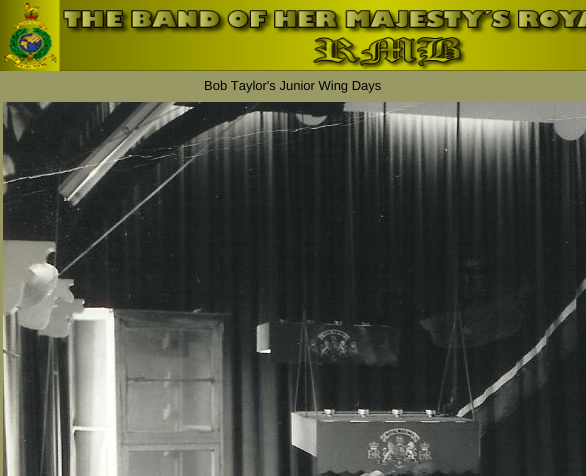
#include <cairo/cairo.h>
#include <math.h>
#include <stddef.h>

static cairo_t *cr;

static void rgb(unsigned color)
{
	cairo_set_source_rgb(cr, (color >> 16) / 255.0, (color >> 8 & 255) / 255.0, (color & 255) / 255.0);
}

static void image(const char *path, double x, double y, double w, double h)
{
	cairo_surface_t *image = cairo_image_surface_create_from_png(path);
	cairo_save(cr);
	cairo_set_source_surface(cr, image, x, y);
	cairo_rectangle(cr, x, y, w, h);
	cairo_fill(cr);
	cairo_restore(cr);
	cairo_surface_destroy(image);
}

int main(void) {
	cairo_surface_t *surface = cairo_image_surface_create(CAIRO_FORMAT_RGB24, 586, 476);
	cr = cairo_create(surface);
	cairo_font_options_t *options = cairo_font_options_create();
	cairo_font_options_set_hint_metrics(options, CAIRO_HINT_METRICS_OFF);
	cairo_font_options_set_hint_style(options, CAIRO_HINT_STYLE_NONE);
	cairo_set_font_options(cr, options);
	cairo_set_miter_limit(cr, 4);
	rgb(0x999966);
	cairo_paint(cr);
	image("img/1.png", 0, 0, 586, 71);
	image("img/2.png", 3, 102, 583, 374);
	cairo_select_font_face(cr, "Liberation Sans", CAIRO_FONT_SLANT_NORMAL, CAIRO_FONT_WEIGHT_NORMAL);
	cairo_set_font_size(cr, 13);
	rgb(0x000000);
	cairo_move_to(cr, 204, 90);
	cairo_show_text(cr, "Bob Taylor's Junior Wing Days");
	cairo_surface_write_to_png(surface, "page.png");
	cairo_font_options_destroy(options);
	cairo_destroy(cr);
	cairo_surface_destroy(surface);
	return 0;
}
